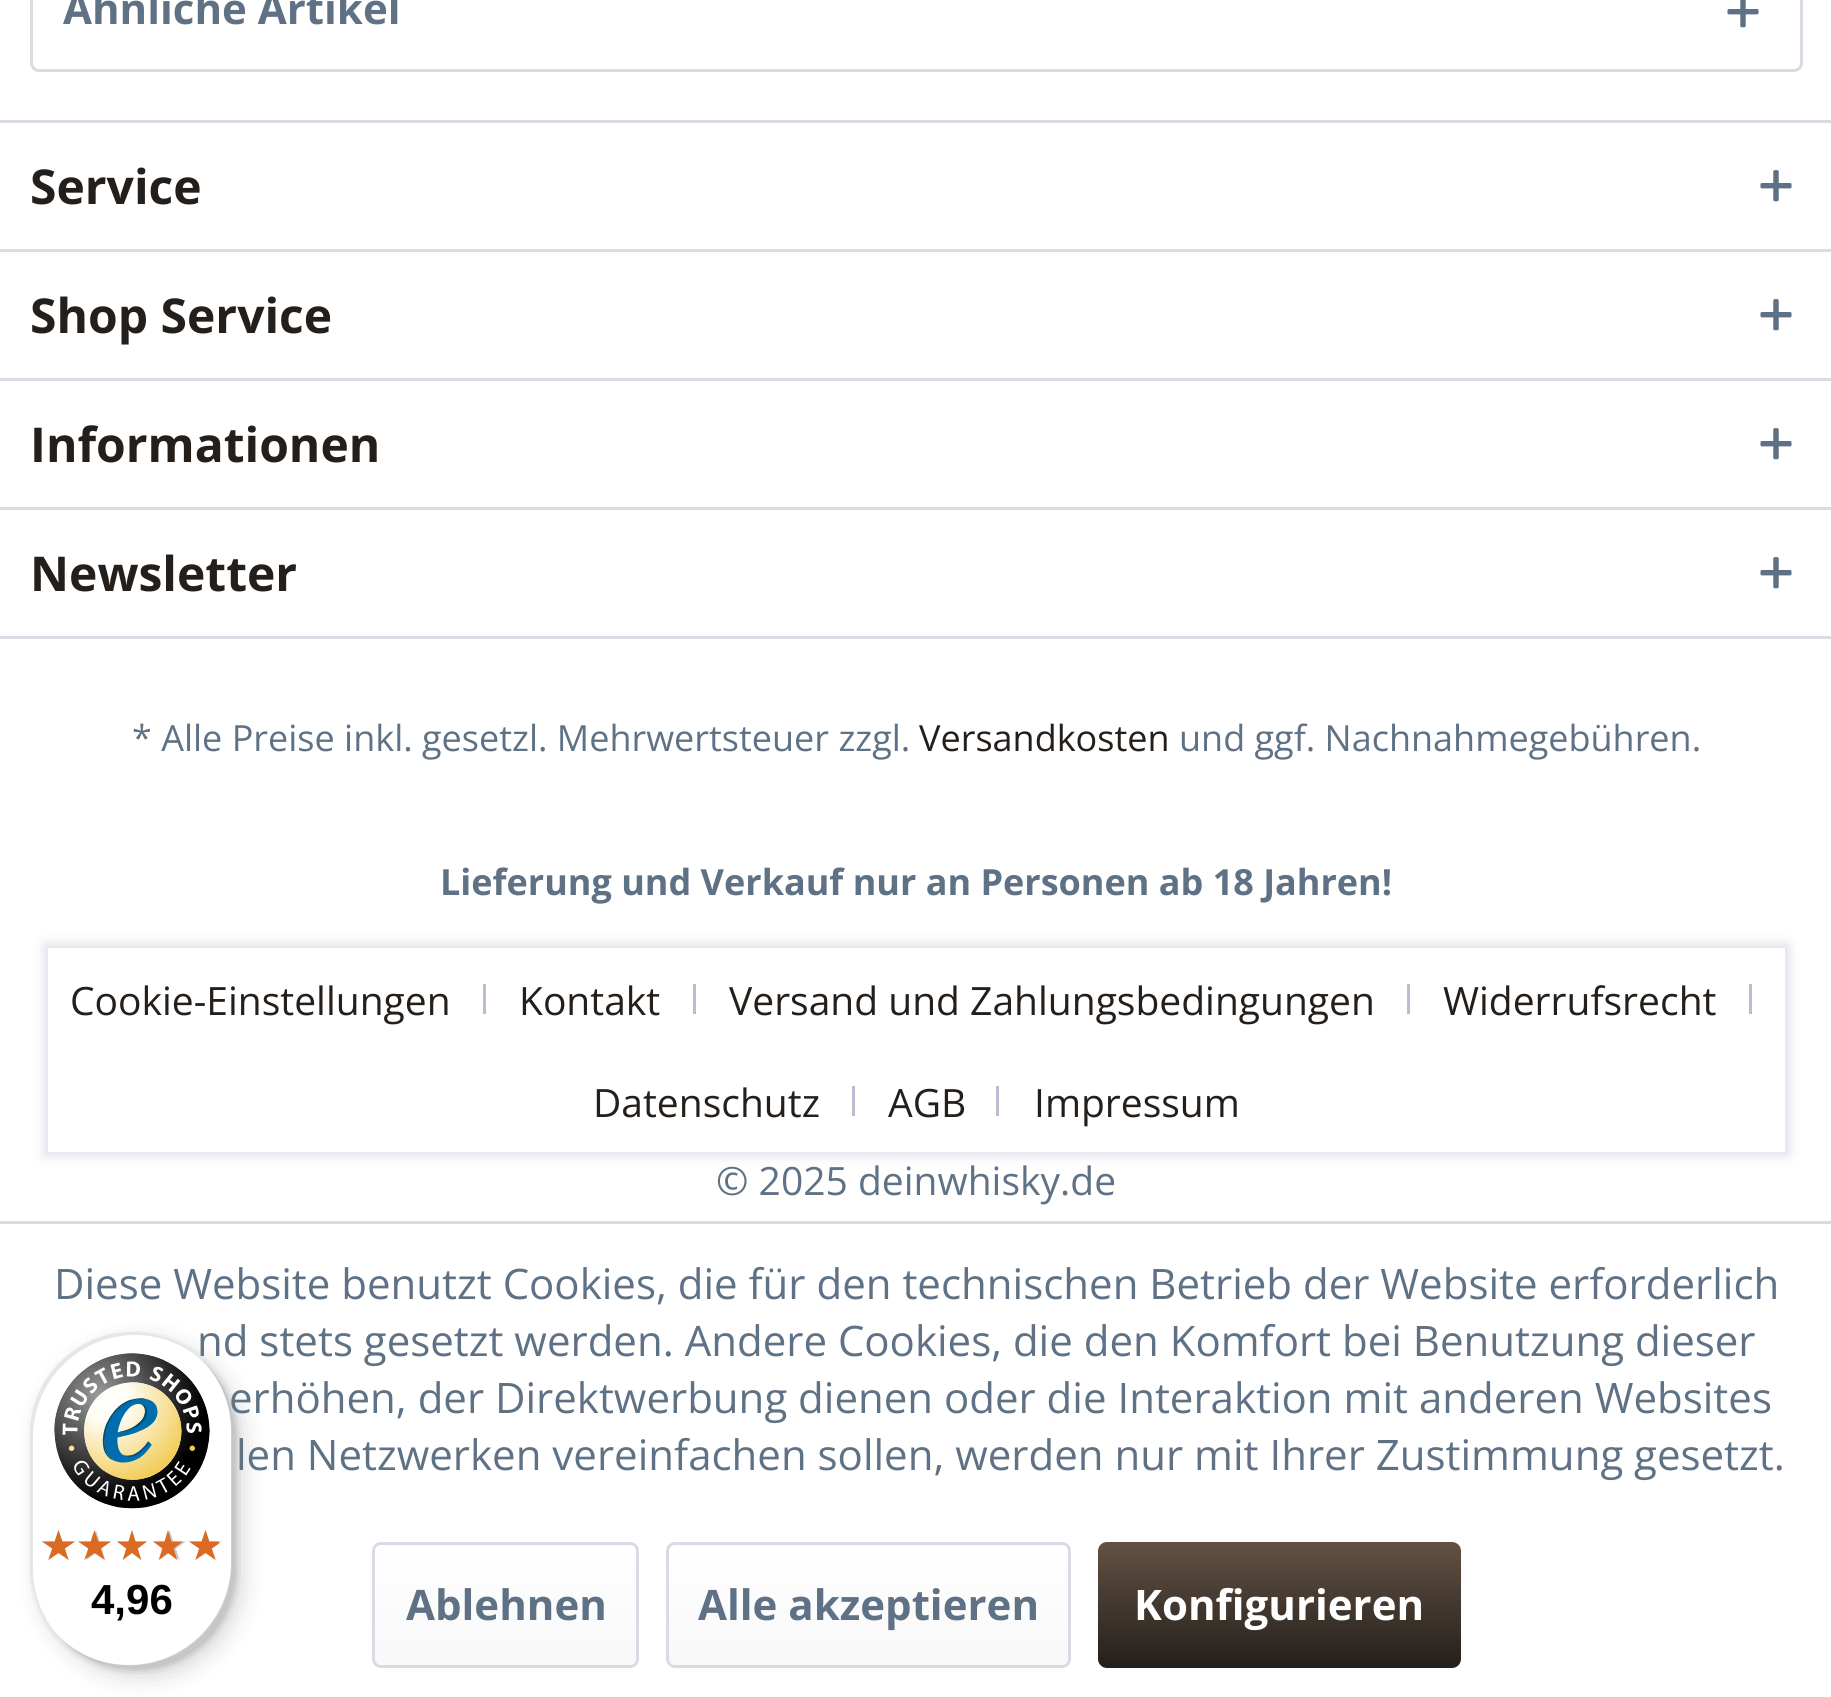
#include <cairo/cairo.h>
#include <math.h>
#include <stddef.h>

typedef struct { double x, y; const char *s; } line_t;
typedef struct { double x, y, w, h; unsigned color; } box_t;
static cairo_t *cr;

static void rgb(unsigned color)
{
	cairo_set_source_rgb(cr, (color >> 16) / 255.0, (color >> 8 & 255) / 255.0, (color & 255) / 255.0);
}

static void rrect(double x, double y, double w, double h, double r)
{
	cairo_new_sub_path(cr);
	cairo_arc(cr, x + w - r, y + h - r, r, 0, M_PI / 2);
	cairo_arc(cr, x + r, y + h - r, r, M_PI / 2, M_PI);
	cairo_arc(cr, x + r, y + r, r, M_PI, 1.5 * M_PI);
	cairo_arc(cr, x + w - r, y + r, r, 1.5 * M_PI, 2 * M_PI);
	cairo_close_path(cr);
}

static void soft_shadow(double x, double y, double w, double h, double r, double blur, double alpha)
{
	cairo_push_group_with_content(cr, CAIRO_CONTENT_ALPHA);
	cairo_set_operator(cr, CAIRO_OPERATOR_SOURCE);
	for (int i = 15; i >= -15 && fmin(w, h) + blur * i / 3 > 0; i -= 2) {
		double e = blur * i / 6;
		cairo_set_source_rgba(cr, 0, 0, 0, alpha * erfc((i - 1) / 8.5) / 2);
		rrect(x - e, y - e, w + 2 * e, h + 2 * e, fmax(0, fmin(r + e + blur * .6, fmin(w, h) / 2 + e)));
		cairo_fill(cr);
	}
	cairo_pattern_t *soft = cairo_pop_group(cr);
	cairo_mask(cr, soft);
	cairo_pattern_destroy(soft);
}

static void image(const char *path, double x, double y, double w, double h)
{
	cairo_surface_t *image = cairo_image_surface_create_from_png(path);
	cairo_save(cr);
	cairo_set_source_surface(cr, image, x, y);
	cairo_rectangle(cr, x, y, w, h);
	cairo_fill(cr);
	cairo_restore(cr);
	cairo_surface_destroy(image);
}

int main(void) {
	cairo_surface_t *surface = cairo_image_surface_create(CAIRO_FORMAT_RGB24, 1831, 1697);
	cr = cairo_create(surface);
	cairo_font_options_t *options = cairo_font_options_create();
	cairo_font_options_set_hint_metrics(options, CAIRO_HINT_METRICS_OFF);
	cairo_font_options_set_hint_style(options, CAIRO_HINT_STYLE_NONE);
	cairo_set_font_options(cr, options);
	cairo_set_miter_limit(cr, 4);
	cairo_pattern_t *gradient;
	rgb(0xffffff);
	cairo_paint(cr);
	rrect(31.5, -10.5, 1770, 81, 7.5);
	rgb(0xdadae5);
	cairo_set_line_width(cr, 3);
	cairo_stroke(cr);
	image("img/1.png", 1727, 0, 32, 28);
	cairo_rectangle(cr, 0, 120, 1831, 3);
	cairo_fill(cr);
	image("img/2.png", 1760, 170, 32, 32);
	cairo_rectangle(cr, 0, 249, 1831, 3);
	cairo_fill(cr);
	image("img/2.png", 1760, 299, 32, 32);
	cairo_rectangle(cr, 0, 378, 1831, 3);
	cairo_fill(cr);
	image("img/2.png", 1760, 428, 32, 32);
	cairo_rectangle(cr, 0, 507, 1831, 3);
	cairo_fill(cr);
	cairo_rectangle(cr, 0, 636, 1831, 3);
	cairo_fill(cr);
	image("img/2.png", 1760, 557, 32, 32);
	cairo_save(cr);
	cairo_set_fill_rule(cr, CAIRO_FILL_RULE_EVEN_ODD);
	cairo_new_path(cr);
	cairo_move_to(cr, 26, 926);
	cairo_line_to(cr, 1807, 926);
	cairo_line_to(cr, 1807, 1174);
	cairo_line_to(cr, 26, 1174);
	cairo_close_path(cr);
	cairo_move_to(cr, 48, 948);
	cairo_line_to(cr, 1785, 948);
	cairo_line_to(cr, 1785, 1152);
	cairo_line_to(cr, 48, 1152);
	cairo_close_path(cr);
	cairo_clip(cr);
	rgb(0xdadae5);
	soft_shadow(45, 945, 1743, 210, 0, 6, 1);
	cairo_restore(cr);
	{
		static const box_t items[] = {
			{483, 984, 3, 30, 0xbcbcd0},
			{693, 984, 3, 30, 0xbcbcd0},
			{1407, 984, 3, 30, 0xbcbcd0},
			{1749, 984, 3, 30, 0xbcbcd0},
			{852, 1086, 3, 30, 0xbcbcd0},
			{996, 1086, 3, 30, 0xbcbcd0},
			{0, 1221, 1831, 3, 0xdadae5},
		};
		for (size_t i = 0; i < sizeof items / sizeof *items; i++) {
			rgb(items[i].color);
			cairo_rectangle(cr, items[i].x, items[i].y, items[i].w, items[i].h);
			cairo_fill(cr);
		}
	}
	gradient = cairo_pattern_create_linear(506, 1545, 506, 1665);
	cairo_pattern_add_color_stop_rgba(gradient, 0, 1, 1, 1, 1);
	cairo_pattern_add_color_stop_rgba(gradient, 1, 0.973, 0.973, 0.98, 1);
	cairo_set_source(cr, gradient);
	cairo_pattern_destroy(gradient);
	rrect(375, 1545, 261, 120, 6);
	cairo_fill(cr);
	rrect(373.5, 1543.5, 264, 123, 7.5);
	rgb(0xdadae5);
	cairo_stroke(cr);
	gradient = cairo_pattern_create_linear(869, 1545, 869, 1665);
	cairo_pattern_add_color_stop_rgba(gradient, 0, 1, 1, 1, 1);
	cairo_pattern_add_color_stop_rgba(gradient, 1, 0.973, 0.973, 0.98, 1);
	cairo_set_source(cr, gradient);
	cairo_pattern_destroy(gradient);
	rrect(669, 1545, 399, 120, 6);
	cairo_fill(cr);
	rrect(667.5, 1543.5, 402, 123, 7.5);
	rgb(0xdadae5);
	cairo_stroke(cr);
	gradient = cairo_pattern_create_linear(1280, 1542, 1280, 1668);
	cairo_pattern_add_color_stop_rgba(gradient, 0, 0.384, 0.318, 0.263, 1);
	cairo_pattern_add_color_stop_rgba(gradient, 1, 0.141, 0.122, 0.106, 1);
	cairo_set_source(cr, gradient);
	cairo_pattern_destroy(gradient);
	rrect(1098, 1542, 363, 126, 9);
	cairo_fill(cr);
	rgb(0x000000);
	soft_shadow(39, 1341, 204, 336, 102, 12, 0.15);
	soft_shadow(33, 1335, 204, 336, 102, 3, 0.15);
	cairo_select_font_face(cr, "Open Sans", CAIRO_FONT_SLANT_NORMAL, CAIRO_FONT_WEIGHT_BOLD);
	cairo_set_font_size(cr, 42);
	rgb(0x5f7285);
	cairo_move_to(cr, 63, 24);
	cairo_show_text(cr, "Ähnliche Artikel");
	cairo_set_font_size(cr, 48);
	rgb(0x241f1b);
	{
		static const line_t items[] = {
			{30, 204, "Service"},
			{30, 333, "Shop Service"},
			{30, 462, "Informationen"},
			{30, 591, "Newsletter"},
		};
		for (size_t i = 0; i < sizeof items / sizeof *items; i++) {
			cairo_move_to(cr, items[i].x, items[i].y);
			cairo_show_text(cr, items[i].s);
		}
	}
	cairo_select_font_face(cr, "Open Sans", CAIRO_FONT_SLANT_NORMAL, CAIRO_FONT_WEIGHT_NORMAL);
	cairo_set_font_size(cr, 36);
	rgb(0x5f7285);
	cairo_move_to(cr, 132, 751);
	cairo_show_text(cr, "* Alle Preise inkl. gesetzl. Mehrwertsteuer zzgl.");
	rgb(0x241f1b);
	cairo_move_to(cr, 919, 751);
	cairo_show_text(cr, "Versandkosten");
	rgb(0x5f7285);
	cairo_move_to(cr, 1179, 751);
	cairo_show_text(cr, "und ggf. Nachnahmegebühren.");
	cairo_select_font_face(cr, "Open Sans", CAIRO_FONT_SLANT_NORMAL, CAIRO_FONT_WEIGHT_BOLD);
	cairo_move_to(cr, 440, 895);
	cairo_show_text(cr, "Lieferung und Verkauf nur an Personen ab 18 Jahren!");
	cairo_select_font_face(cr, "Open Sans", CAIRO_FONT_SLANT_NORMAL, CAIRO_FONT_WEIGHT_NORMAL);
	cairo_set_font_size(cr, 39);
	rgb(0x241f1b);
	{
		static const line_t items[] = {
			{70, 1015, "Cookie-Einstellungen"},
			{519, 1015, "Kontakt"},
			{729, 1015, "Versand und Zahlungsbedingungen"},
			{1443, 1015, "Widerrufsrecht"},
			{593, 1117, "Datenschutz"},
			{888, 1117, "AGB"},
			{1034, 1117, "Impressum"},
		};
		for (size_t i = 0; i < sizeof items / sizeof *items; i++) {
			cairo_move_to(cr, items[i].x, items[i].y);
			cairo_show_text(cr, items[i].s);
		}
	}
	rgb(0x5f7285);
	cairo_move_to(cr, 716, 1195);
	cairo_show_text(cr, "© 2025 deinwhisky.de");
	cairo_set_font_size(cr, 42);
	{
		static const line_t items[] = {
			{54, 1299, "Diese Website benutzt Cookies, die für den technischen Betrieb der Website erforderlich"},
			{197, 1356, "nd stets gesetzt werden. Andere Cookies, die den Komfort bei Benutzung dieser"},
			{229, 1413, "erhöhen, der Direktwerbung dienen oder die Interaktion mit anderen Websites"},
			{236, 1470, "len Netzwerken vereinfachen sollen, werden nur mit Ihrer Zustimmung gesetzt."},
		};
		for (size_t i = 0; i < sizeof items / sizeof *items; i++) {
			cairo_move_to(cr, items[i].x, items[i].y);
			cairo_show_text(cr, items[i].s);
		}
	}
	cairo_select_font_face(cr, "Open Sans", CAIRO_FONT_SLANT_NORMAL, CAIRO_FONT_WEIGHT_BOLD);
	cairo_move_to(cr, 406, 1620);
	cairo_show_text(cr, "Ablehnen");
	cairo_move_to(cr, 698, 1620);
	cairo_show_text(cr, "Alle akzeptieren");
	rgb(0xffffff);
	cairo_move_to(cr, 1134, 1620);
	cairo_show_text(cr, "Konfigurieren");
	rrect(30, 1332, 204, 336, 102);
	cairo_fill(cr);
	cairo_set_source_rgba(cr, 0, 0, 0, 0.1);
	cairo_new_path(cr);
	cairo_move_to(cr, 135, 1335);
	cairo_curve_to(cr, 164, 1335, 190, 1347, 208, 1367);
	cairo_curve_to(cr, 190, 1345, 162, 1332, 132, 1332);
	cairo_curve_to(cr, 76, 1332, 30, 1378, 30, 1434);
	cairo_line_to(cr, 30, 1566);
	cairo_curve_to(cr, 30, 1596, 43, 1624, 65, 1642);
	cairo_curve_to(cr, 45, 1624, 33, 1598, 33, 1569);
	cairo_line_to(cr, 33, 1437);
	cairo_curve_to(cr, 33, 1381, 79, 1335, 135, 1335);
	cairo_close_path(cr);
	cairo_fill(cr);
	cairo_set_source_rgba(cr, 0, 0, 0, 0.2);
	cairo_new_path(cr);
	cairo_move_to(cr, 56, 1633);
	cairo_curve_to(cr, 74, 1655, 102, 1668, 132, 1668);
	cairo_curve_to(cr, 188, 1668, 234, 1622, 234, 1566);
	cairo_line_to(cr, 234, 1434);
	cairo_curve_to(cr, 234, 1404, 221, 1376, 199, 1358);
	cairo_curve_to(cr, 219, 1376, 231, 1402, 231, 1431);
	cairo_line_to(cr, 231, 1563);
	cairo_curve_to(cr, 231, 1619, 185, 1665, 129, 1665);
	cairo_curve_to(cr, 100, 1665, 74, 1653, 56, 1633);
	cairo_close_path(cr);
	cairo_fill(cr);
	cairo_set_source_rgba(cr, 0.196, 0.196, 0.196, 0.2);
	cairo_new_path(cr);
	cairo_move_to(cr, 61, 1639);
	cairo_curve_to(cr, 79, 1657, 104, 1668, 132, 1668);
	cairo_curve_to(cr, 188, 1668, 234, 1622, 234, 1566);
	cairo_line_to(cr, 234, 1434);
	cairo_curve_to(cr, 234, 1406, 223, 1381, 205, 1363);
	cairo_curve_to(cr, 222, 1381, 232, 1406, 232, 1432);
	cairo_line_to(cr, 232, 1564);
	cairo_curve_to(cr, 232, 1621, 187, 1666, 130, 1666);
	cairo_curve_to(cr, 104, 1666, 79, 1656, 61, 1639);
	cairo_close_path(cr);
	cairo_fill(cr);
	cairo_set_source_rgba(cr, 1, 1, 1, 0.3);
	cairo_new_path(cr);
	cairo_move_to(cr, 61, 1639);
	cairo_curve_to(cr, 79, 1657, 104, 1668, 132, 1668);
	cairo_curve_to(cr, 188, 1668, 234, 1622, 234, 1566);
	cairo_line_to(cr, 234, 1434);
	cairo_curve_to(cr, 234, 1406, 223, 1381, 205, 1363);
	cairo_curve_to(cr, 222, 1381, 232, 1406, 232, 1432);
	cairo_line_to(cr, 232, 1564);
	cairo_curve_to(cr, 232, 1621, 187, 1666, 130, 1666);
	cairo_curve_to(cr, 104, 1666, 79, 1656, 61, 1639);
	cairo_close_path(cr);
	cairo_fill(cr);
	image("img/3.png", 54, 1353, 156, 156);
	image("img/4.png", 42, 1530, 33, 30);
	image("img/5.png", 81, 1530, 30, 30);
	image("img/5.png", 117, 1530, 30, 30);
	image("img/4.png", 153, 1530, 33, 30);
	image("img/4.png", 189, 1530, 33, 30);
	image("img/6.png", 42, 1530, 33, 30);
	image("img/7.png", 78, 1530, 33, 30);
	image("img/8.png", 117, 1530, 30, 30);
	image("img/9.png", 153, 1530, 30, 30);
	image("img/10.png", 189, 1530, 30, 30);
	cairo_select_font_face(cr, "Liberation Sans", CAIRO_FONT_SLANT_NORMAL, CAIRO_FONT_WEIGHT_BOLD);
	rgb(0x000000);
	cairo_move_to(cr, 91, 1614);
	cairo_show_text(cr, "4,96");
	cairo_surface_write_to_png(surface, "page.png");
	cairo_font_options_destroy(options);
	cairo_destroy(cr);
	cairo_surface_destroy(surface);
	return 0;
}
